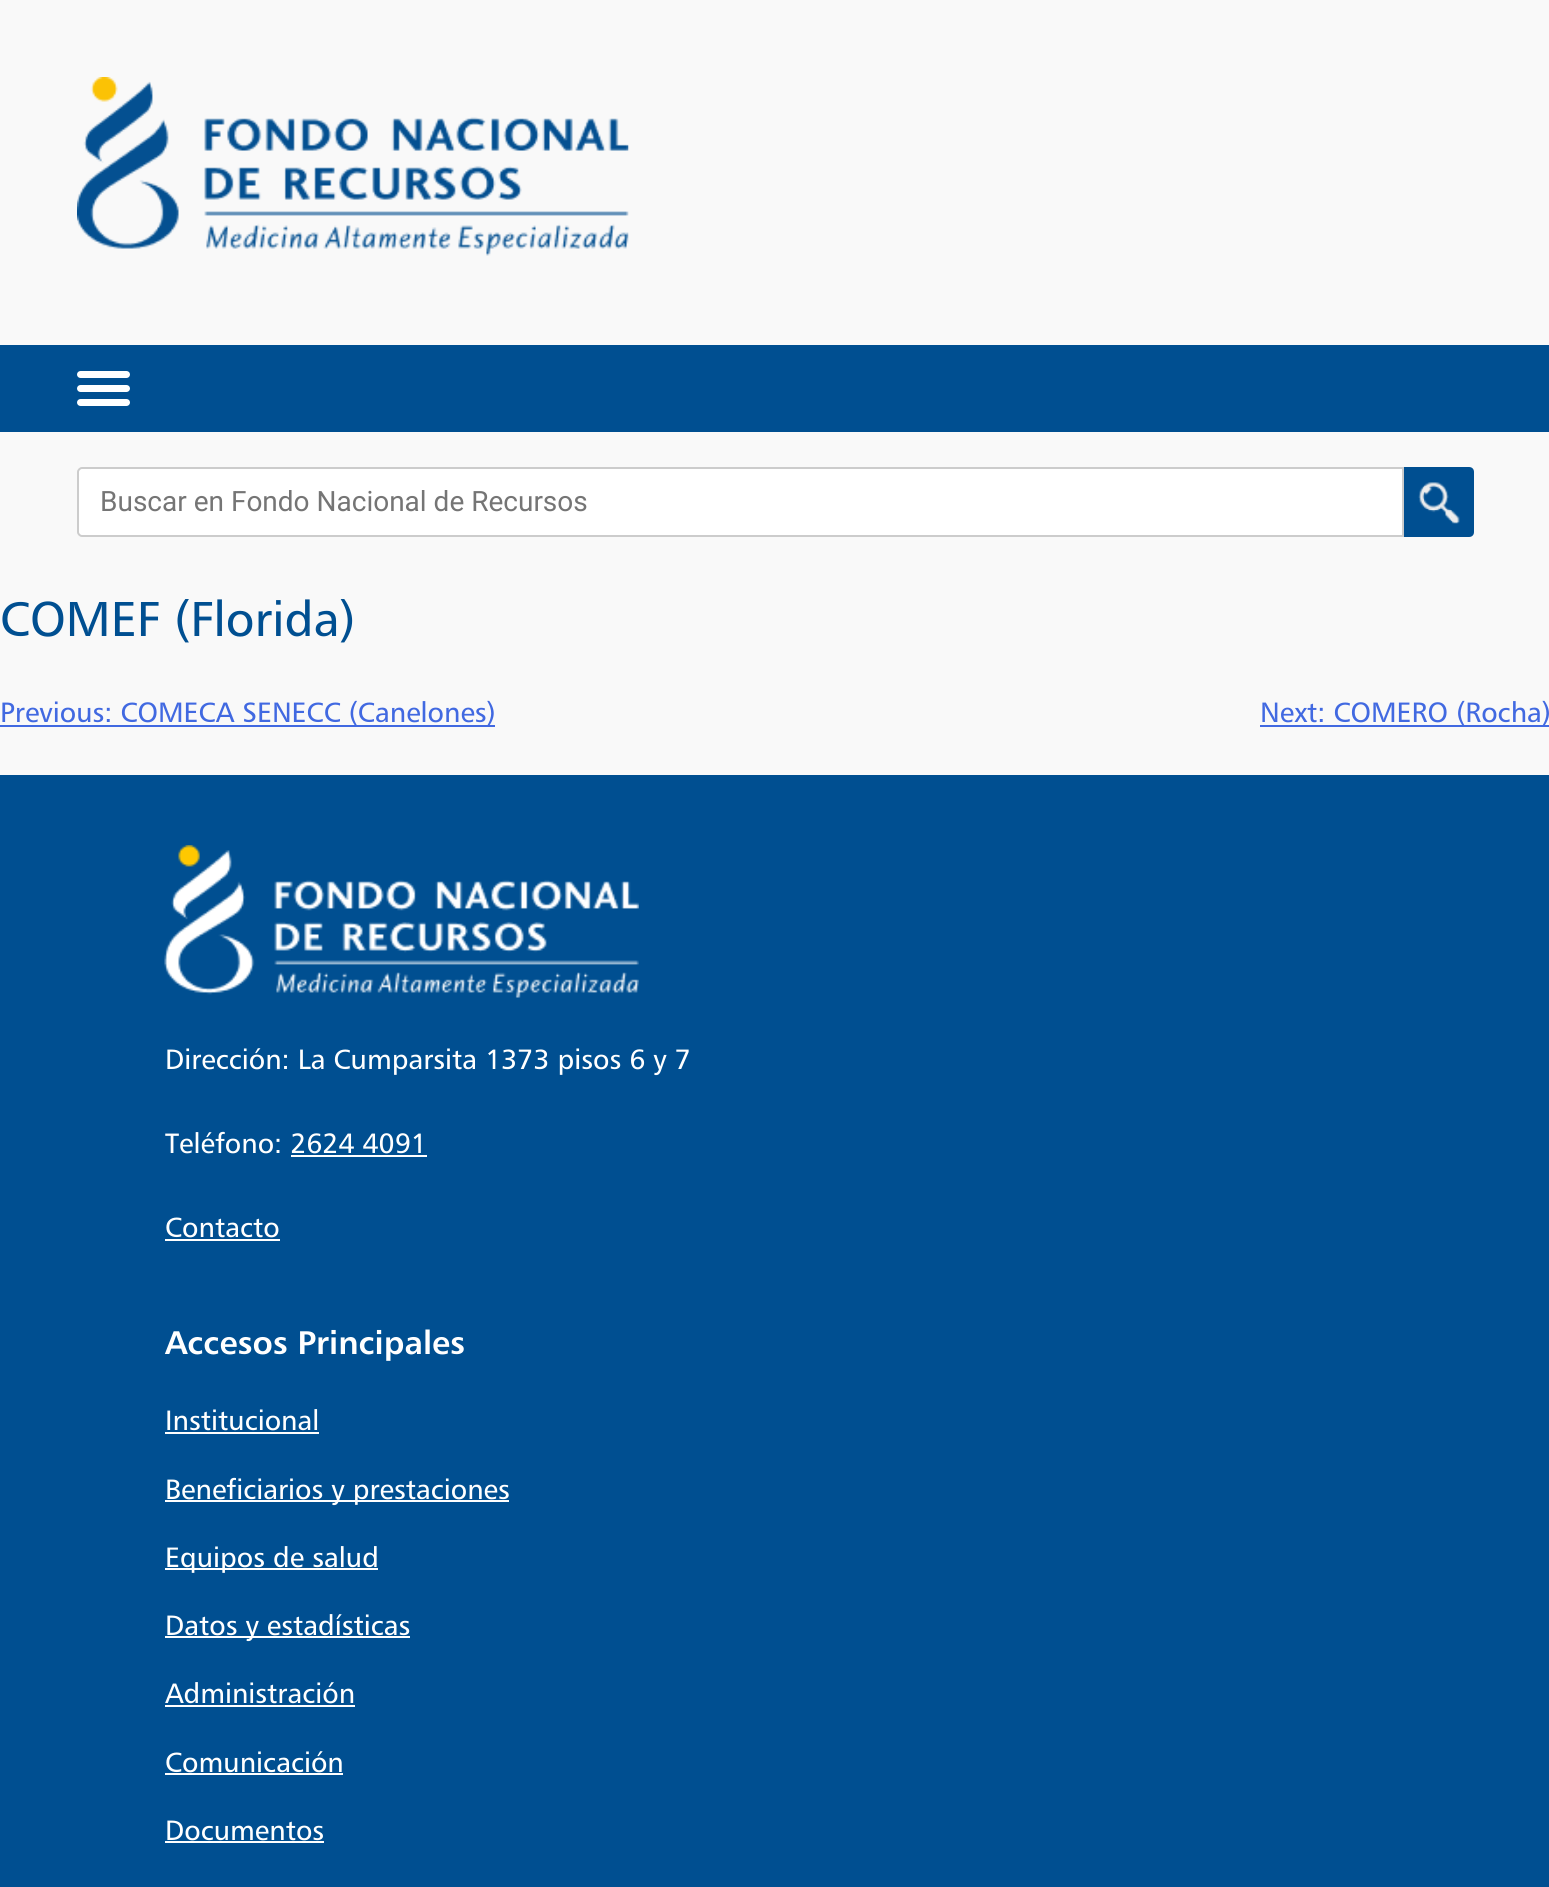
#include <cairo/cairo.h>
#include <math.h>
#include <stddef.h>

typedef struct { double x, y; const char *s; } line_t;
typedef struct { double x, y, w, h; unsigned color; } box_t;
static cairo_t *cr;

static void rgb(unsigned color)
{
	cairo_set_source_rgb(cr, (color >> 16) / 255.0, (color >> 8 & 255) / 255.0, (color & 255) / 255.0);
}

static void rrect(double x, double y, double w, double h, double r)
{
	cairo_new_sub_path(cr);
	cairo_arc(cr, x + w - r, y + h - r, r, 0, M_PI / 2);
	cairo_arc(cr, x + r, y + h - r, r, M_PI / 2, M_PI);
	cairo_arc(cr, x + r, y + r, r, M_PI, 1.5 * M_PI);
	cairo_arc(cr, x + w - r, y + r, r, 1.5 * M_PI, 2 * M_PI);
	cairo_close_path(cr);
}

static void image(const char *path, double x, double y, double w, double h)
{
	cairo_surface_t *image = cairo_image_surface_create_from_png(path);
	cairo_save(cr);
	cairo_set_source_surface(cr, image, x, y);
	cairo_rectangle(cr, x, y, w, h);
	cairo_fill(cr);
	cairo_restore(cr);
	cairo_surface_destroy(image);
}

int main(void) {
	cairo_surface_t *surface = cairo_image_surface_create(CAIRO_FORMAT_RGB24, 1549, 1887);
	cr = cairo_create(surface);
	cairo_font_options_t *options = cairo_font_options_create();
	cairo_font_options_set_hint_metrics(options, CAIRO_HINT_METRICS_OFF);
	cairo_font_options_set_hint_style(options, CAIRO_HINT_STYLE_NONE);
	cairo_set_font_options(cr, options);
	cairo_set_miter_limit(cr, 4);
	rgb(0xf9f9f9);
	cairo_paint(cr);
	image("img/1.png", 77, 77, 552, 179);
	rgb(0x004f91);
	cairo_rectangle(cr, 0, 345, 1549, 87);
	cairo_fill(cr);
	rgb(0xffffff);
	rrect(77, 385, 53, 7, 3.5);
	cairo_fill(cr);
	rrect(77, 371, 53, 7, 3.5);
	cairo_fill(cr);
	rrect(77, 399, 53, 7, 3.5);
	cairo_fill(cr);
	cairo_new_path(cr);
	cairo_move_to(cr, 82, 468);
	cairo_line_to(cr, 1403, 468);
	cairo_line_to(cr, 1403, 536);
	cairo_line_to(cr, 82, 536);
	cairo_curve_to(cr, 80, 536, 78, 534, 78, 532);
	cairo_line_to(cr, 78, 472);
	cairo_curve_to(cr, 78, 470, 80, 468, 82, 468);
	cairo_close_path(cr);
	cairo_fill_preserve(cr);
	rgb(0xcccccc);
	cairo_stroke(cr);
	rgb(0x004f91);
	cairo_new_path(cr);
	cairo_move_to(cr, 1404, 467);
	cairo_line_to(cr, 1469, 467);
	cairo_curve_to(cr, 1472, 467, 1474, 469, 1474, 472);
	cairo_line_to(cr, 1474, 532);
	cairo_curve_to(cr, 1474, 535, 1472, 537, 1469, 537);
	cairo_line_to(cr, 1404, 537);
	cairo_close_path(cr);
	cairo_fill(cr);
	image("img/2.png", 1418, 482, 42, 42);
	{
		static const box_t items[] = {
			{0, 725, 495, 2, 0x4169e1},
			{1260, 725, 289, 2, 0x4169e1},
			{0, 775, 1549, 1112, 0x004f91},
		};
		for (size_t i = 0; i < sizeof items / sizeof *items; i++) {
			rgb(items[i].color);
			cairo_rectangle(cr, items[i].x, items[i].y, items[i].w, items[i].h);
			cairo_fill(cr);
		}
	}
	image("img/3.png", 164, 845, 475, 153);
	{
		static const box_t items[] = {
			{291, 1155, 136, 2, 0xffffff},
			{165, 1239, 115, 2, 0xffffff},
			{165, 1432, 154, 2, 0xffffff},
			{165, 1500, 344, 2, 0xffffff},
			{165, 1568, 213, 2, 0xffffff},
			{165, 1636, 245, 2, 0xffffff},
			{165, 1705, 190, 2, 0xffffff},
			{165, 1773, 178, 2, 0xffffff},
			{165, 1841, 159, 2, 0xffffff},
		};
		for (size_t i = 0; i < sizeof items / sizeof *items; i++) {
			rgb(items[i].color);
			cairo_rectangle(cr, items[i].x, items[i].y, items[i].w, items[i].h);
			cairo_fill(cr);
		}
	}
	cairo_select_font_face(cr, "Roboto", CAIRO_FONT_SLANT_NORMAL, CAIRO_FONT_WEIGHT_NORMAL);
	cairo_set_font_size(cr, 28);
	rgb(0x757575);
	cairo_move_to(cr, 100, 511);
	cairo_show_text(cr, "Buscar en Fondo Nacional de Recursos");
	cairo_select_font_face(cr, "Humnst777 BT", CAIRO_FONT_SLANT_NORMAL, CAIRO_FONT_WEIGHT_NORMAL);
	cairo_set_font_size(cr, 49);
	rgb(0x004f91);
	cairo_move_to(cr, 0, 636);
	cairo_show_text(cr, "COMEF (Florida)");
	cairo_set_font_size(cr, 28);
	rgb(0x4169e1);
	cairo_move_to(cr, 0, 722);
	cairo_show_text(cr, "Previous: COMECA SENECC (Canelones)");
	cairo_move_to(cr, 1260, 722);
	cairo_show_text(cr, "Next: COMERO (Rocha)");
	rgb(0xffffff);
	{
		static const line_t items[] = {
			{165, 1069, "Dirección: La Cumparsita 1373 pisos 6 y 7"},
			{165, 1153, "Teléfono: 2624 4091"},
			{165, 1237, "Contacto"},
		};
		for (size_t i = 0; i < sizeof items / sizeof *items; i++) {
			cairo_move_to(cr, items[i].x, items[i].y);
			cairo_show_text(cr, items[i].s);
		}
	}
	cairo_select_font_face(cr, "Humnst777 BT", CAIRO_FONT_SLANT_NORMAL, CAIRO_FONT_WEIGHT_BOLD);
	cairo_set_font_size(cr, 32.75);
	cairo_move_to(cr, 165, 1354);
	cairo_show_text(cr, "Accesos Principales");
	cairo_select_font_face(cr, "Humnst777 BT", CAIRO_FONT_SLANT_NORMAL, CAIRO_FONT_WEIGHT_NORMAL);
	cairo_set_font_size(cr, 28);
	{
		static const line_t items[] = {
			{165, 1430, "Institucional"},
			{165, 1499, "Beneficiarios y prestaciones"},
			{165, 1567, "Equipos de salud"},
			{165, 1635, "Datos y estadísticas"},
			{165, 1703, "Administración"},
			{165, 1772, "Comunicación"},
			{165, 1840, "Documentos"},
		};
		for (size_t i = 0; i < sizeof items / sizeof *items; i++) {
			cairo_move_to(cr, items[i].x, items[i].y);
			cairo_show_text(cr, items[i].s);
		}
	}
	cairo_surface_write_to_png(surface, "page.png");
	cairo_font_options_destroy(options);
	cairo_destroy(cr);
	cairo_surface_destroy(surface);
	return 0;
}
